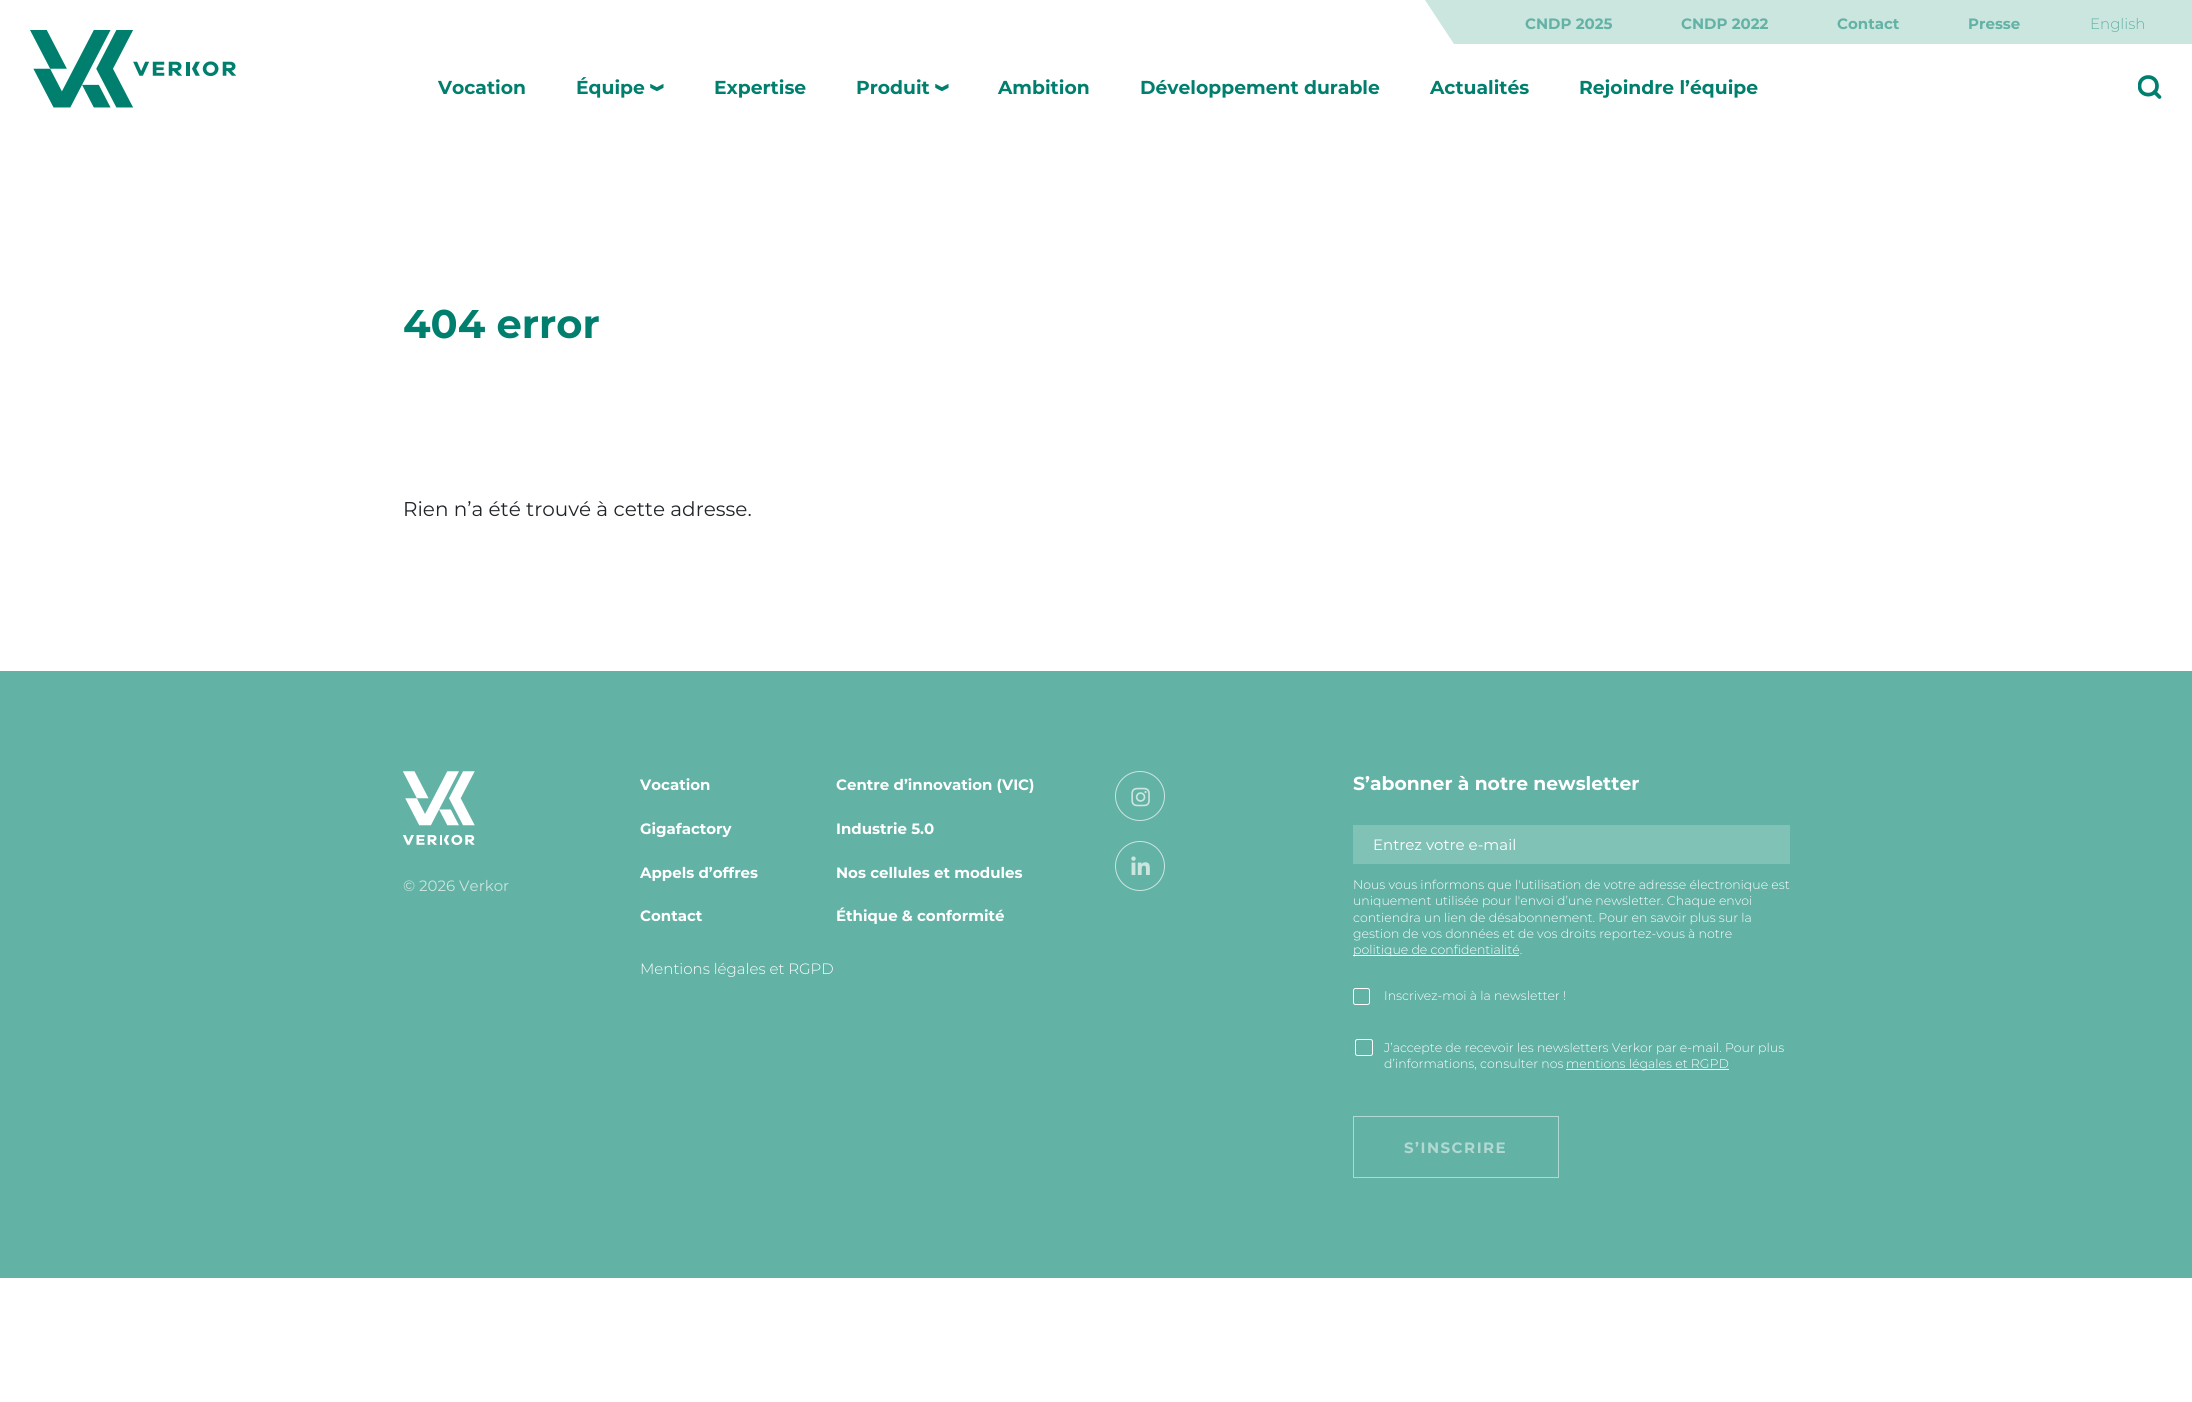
#include <cairo/cairo.h>
#include <math.h>
#include <stddef.h>

typedef struct { double x, y; const char *s; } line_t;
static cairo_t *cr;

static void rgb(unsigned color)
{
	cairo_set_source_rgb(cr, (color >> 16) / 255.0, (color >> 8 & 255) / 255.0, (color & 255) / 255.0);
}

static void tracked(double x, double y, const char *s, double letter, double word)
{
	cairo_move_to(cr, x, y);
	while (*s) {
		char ch[5] = {0};
		int n = 0;
		do ch[n++] = *s++; while ((*s & 0xC0) == 0x80);
		cairo_show_text(cr, ch);
		cairo_rel_move_to(cr, letter + word * (*ch == ' '), 0);
	}
}

static void rrect(double x, double y, double w, double h, double r)
{
	cairo_new_sub_path(cr);
	cairo_arc(cr, x + w - r, y + h - r, r, 0, M_PI / 2);
	cairo_arc(cr, x + r, y + h - r, r, M_PI / 2, M_PI);
	cairo_arc(cr, x + r, y + r, r, M_PI, 1.5 * M_PI);
	cairo_arc(cr, x + w - r, y + r, r, 1.5 * M_PI, 2 * M_PI);
	cairo_close_path(cr);
}

static void image(const char *path, double x, double y, double w, double h)
{
	cairo_surface_t *image = cairo_image_surface_create_from_png(path);
	cairo_save(cr);
	cairo_set_source_surface(cr, image, x, y);
	cairo_rectangle(cr, x, y, w, h);
	cairo_fill(cr);
	cairo_restore(cr);
	cairo_surface_destroy(image);
}

int main(void) {
	cairo_surface_t *surface = cairo_image_surface_create(CAIRO_FORMAT_RGB24, 2192, 1402);
	cr = cairo_create(surface);
	cairo_font_options_t *options = cairo_font_options_create();
	cairo_font_options_set_hint_metrics(options, CAIRO_HINT_METRICS_OFF);
	cairo_font_options_set_hint_style(options, CAIRO_HINT_STYLE_NONE);
	cairo_set_font_options(cr, options);
	cairo_set_miter_limit(cr, 4);
	rgb(0xffffff);
	cairo_paint(cr);
	rgb(0xcbe5df);
	cairo_new_path(cr);
	cairo_move_to(cr, 1425, 0);
	cairo_line_to(cr, 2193, 0);
	cairo_line_to(cr, 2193, 44);
	cairo_line_to(cr, 1454, 44);
	cairo_close_path(cr);
	cairo_fill(cr);
	image("img/1.png", 30, 30, 206, 78);
	image("img/2.png", 650, 84, 14, 7);
	image("img/2.png", 935, 84, 14, 7);
	cairo_save(cr);
	cairo_rectangle(cr, 2138, 75, 25, 25);
	cairo_clip(cr);
	cairo_new_path(cr);
	cairo_move_to(cr, 2157, 86);
	cairo_curve_to(cr, 2157, 97.5, 2139.5, 97.5, 2139.5, 86);
	cairo_curve_to(cr, 2139.5, 74, 2157, 74, 2157, 86);
	cairo_close_path(cr);
	rgb(0x007f6e);
	cairo_set_line_width(cr, 3.7);
	cairo_set_line_cap(cr, CAIRO_LINE_CAP_ROUND);
	cairo_set_line_join(cr, CAIRO_LINE_JOIN_ROUND);
	cairo_stroke(cr);
	cairo_restore(cr);
	cairo_new_path(cr);
	cairo_move_to(cr, 2159.5, 97);
	cairo_line_to(cr, 2154.5, 92);
	rgb(0x007f6e);
	cairo_set_line_width(cr, 3.7);
	cairo_set_line_cap(cr, CAIRO_LINE_CAP_ROUND);
	cairo_set_line_join(cr, CAIRO_LINE_JOIN_ROUND);
	cairo_stroke(cr);
	rgb(0x62b2a5);
	cairo_rectangle(cr, 0, 671, 2192, 607);
	cairo_fill(cr);
	image("img/3.png", 403, 771, 72, 74);
	cairo_arc(cr, 1140, 796, 24.5, 0, 2 * M_PI);
	rgb(0xcbe5df);
	cairo_set_line_width(cr, 1);
	cairo_set_line_cap(cr, CAIRO_LINE_CAP_BUTT);
	cairo_set_line_join(cr, CAIRO_LINE_JOIN_MITER);
	cairo_stroke(cr);
	image("img/4.png", 1131, 787, 19, 20);
	cairo_arc(cr, 1140, 866, 24.5, 0, 2 * M_PI);
	cairo_stroke(cr);
	image("img/5.png", 1131, 856, 19, 19);
	rgb(0x81c2b7);
	cairo_rectangle(cr, 1353, 825, 437, 39);
	cairo_fill(cr);
	rgb(0xffffff);
	cairo_rectangle(cr, 1353, 955, 166, 1);
	cairo_fill(cr);
	rrect(1353.5, 988.5, 16, 16, 2);
	cairo_stroke(cr);
	rrect(1355.5, 1039.5, 17, 16, 2);
	cairo_stroke(cr);
	cairo_rectangle(cr, 1566, 1069, 163, 1);
	cairo_fill(cr);
	cairo_rectangle(cr, 1353.5, 1116.5, 205, 61);
	rgb(0xb1d9d2);
	cairo_stroke(cr);
	cairo_select_font_face(cr, "Montserrat", CAIRO_FONT_SLANT_NORMAL, CAIRO_FONT_WEIGHT_BOLD);
	cairo_set_font_size(cr, 15);
	rgb(0x62b2a5);
	{
		static const line_t items[] = {
			{1525, 29, "CNDP 2025"},
			{1681, 29, "CNDP 2022"},
			{1837, 29, "Contact"},
			{1968, 29, "Presse"},
		};
		for (size_t i = 0; i < sizeof items / sizeof *items; i++) {
			cairo_move_to(cr, items[i].x, items[i].y);
			cairo_show_text(cr, items[i].s);
		}
	}
	cairo_select_font_face(cr, "Montserrat Light", CAIRO_FONT_SLANT_NORMAL, CAIRO_FONT_WEIGHT_NORMAL);
	cairo_move_to(cr, 2090, 29);
	cairo_show_text(cr, "English");
	cairo_select_font_face(cr, "Montserrat", CAIRO_FONT_SLANT_NORMAL, CAIRO_FONT_WEIGHT_BOLD);
	cairo_set_font_size(cr, 18.75);
	rgb(0x007f6e);
	{
		static const line_t items[] = {
			{438, 94, "Vocation"},
			{576, 94, "Équipe"},
			{714, 94, "Expertise"},
			{856, 94, "Produit"},
			{998, 94, "Ambition"},
			{1140, 94, "Développement durable"},
			{1430, 94, "Actualités"},
			{1579, 94, "Rejoindre l’équipe"},
		};
		for (size_t i = 0; i < sizeof items / sizeof *items; i++) {
			cairo_move_to(cr, items[i].x, items[i].y);
			cairo_show_text(cr, items[i].s);
		}
	}
	cairo_set_font_size(cr, 40);
	cairo_move_to(cr, 403, 338);
	cairo_show_text(cr, "404 error");
	cairo_select_font_face(cr, "Montserrat", CAIRO_FONT_SLANT_NORMAL, CAIRO_FONT_WEIGHT_NORMAL);
	cairo_set_font_size(cr, 20);
	rgb(0x212529);
	cairo_move_to(cr, 403, 516);
	cairo_show_text(cr, "Rien n’a été trouvé à cette adresse.");
	cairo_set_font_size(cr, 15);
	rgb(0xcbe5df);
	cairo_move_to(cr, 403, 891);
	cairo_show_text(cr, "© 2026 Verkor");
	cairo_select_font_face(cr, "Montserrat", CAIRO_FONT_SLANT_NORMAL, CAIRO_FONT_WEIGHT_BOLD);
	rgb(0xffffff);
	{
		static const line_t items[] = {
			{640, 790, "Vocation"},
			{836, 790, "Centre d’innovation (VIC)"},
			{640, 834, "Gigafactory"},
			{836, 834, "Industrie 5.0"},
			{640, 878, "Appels d’offres"},
			{836, 878, "Nos cellules et modules"},
			{640, 921, "Contact"},
			{836, 921, "Éthique & conformité"},
		};
		for (size_t i = 0; i < sizeof items / sizeof *items; i++) {
			cairo_move_to(cr, items[i].x, items[i].y);
			cairo_show_text(cr, items[i].s);
		}
	}
	cairo_select_font_face(cr, "Montserrat Light", CAIRO_FONT_SLANT_NORMAL, CAIRO_FONT_WEIGHT_NORMAL);
	cairo_move_to(cr, 640, 974);
	cairo_show_text(cr, "Mentions légales et RGPD");
	cairo_select_font_face(cr, "Montserrat", CAIRO_FONT_SLANT_NORMAL, CAIRO_FONT_WEIGHT_BOLD);
	cairo_set_font_size(cr, 18.75);
	cairo_move_to(cr, 1353, 790);
	cairo_show_text(cr, "S’abonner à notre newsletter");
	cairo_select_font_face(cr, "Montserrat", CAIRO_FONT_SLANT_NORMAL, CAIRO_FONT_WEIGHT_NORMAL);
	cairo_set_font_size(cr, 15);
	cairo_move_to(cr, 1373, 850);
	cairo_show_text(cr, "Entrez votre e-mail");
	cairo_select_font_face(cr, "Montserrat Light", CAIRO_FONT_SLANT_NORMAL, CAIRO_FONT_WEIGHT_NORMAL);
	cairo_set_font_size(cr, 12.5);
	{
		static const line_t items[] = {
			{1353, 889, "Nous vous informons que l'utilisation de votre adresse électronique est"},
			{1353, 905, "uniquement utilisée pour l'envoi d’une newsletter. Chaque envoi"},
			{1353, 922, "contiendra un lien de désabonnement. Pour en savoir plus sur la"},
			{1353, 938, "gestion de vos données et de vos droits reportez-vous à notre"},
			{1353, 954, "politique de confidentialité."},
			{1384, 1000, "Inscrivez-moi à la newsletter !"},
			{1384, 1052, "J’accepte de recevoir les newsletters Verkor par e-mail. Pour plus"},
			{1384, 1068, "d’informations, consulter nos"},
			{1566, 1068, "mentions légales et RGPD"},
		};
		for (size_t i = 0; i < sizeof items / sizeof *items; i++) {
			cairo_move_to(cr, items[i].x, items[i].y);
			cairo_show_text(cr, items[i].s);
		}
	}
	cairo_select_font_face(cr, "Montserrat", CAIRO_FONT_SLANT_NORMAL, CAIRO_FONT_WEIGHT_BOLD);
	cairo_set_font_size(cr, 15);
	rgb(0xb1d9d2);
	tracked(1404, 1153, "S’INSCRIRE", 1.5, 0);
	cairo_surface_write_to_png(surface, "page.png");
	cairo_font_options_destroy(options);
	cairo_destroy(cr);
	cairo_surface_destroy(surface);
	return 0;
}
